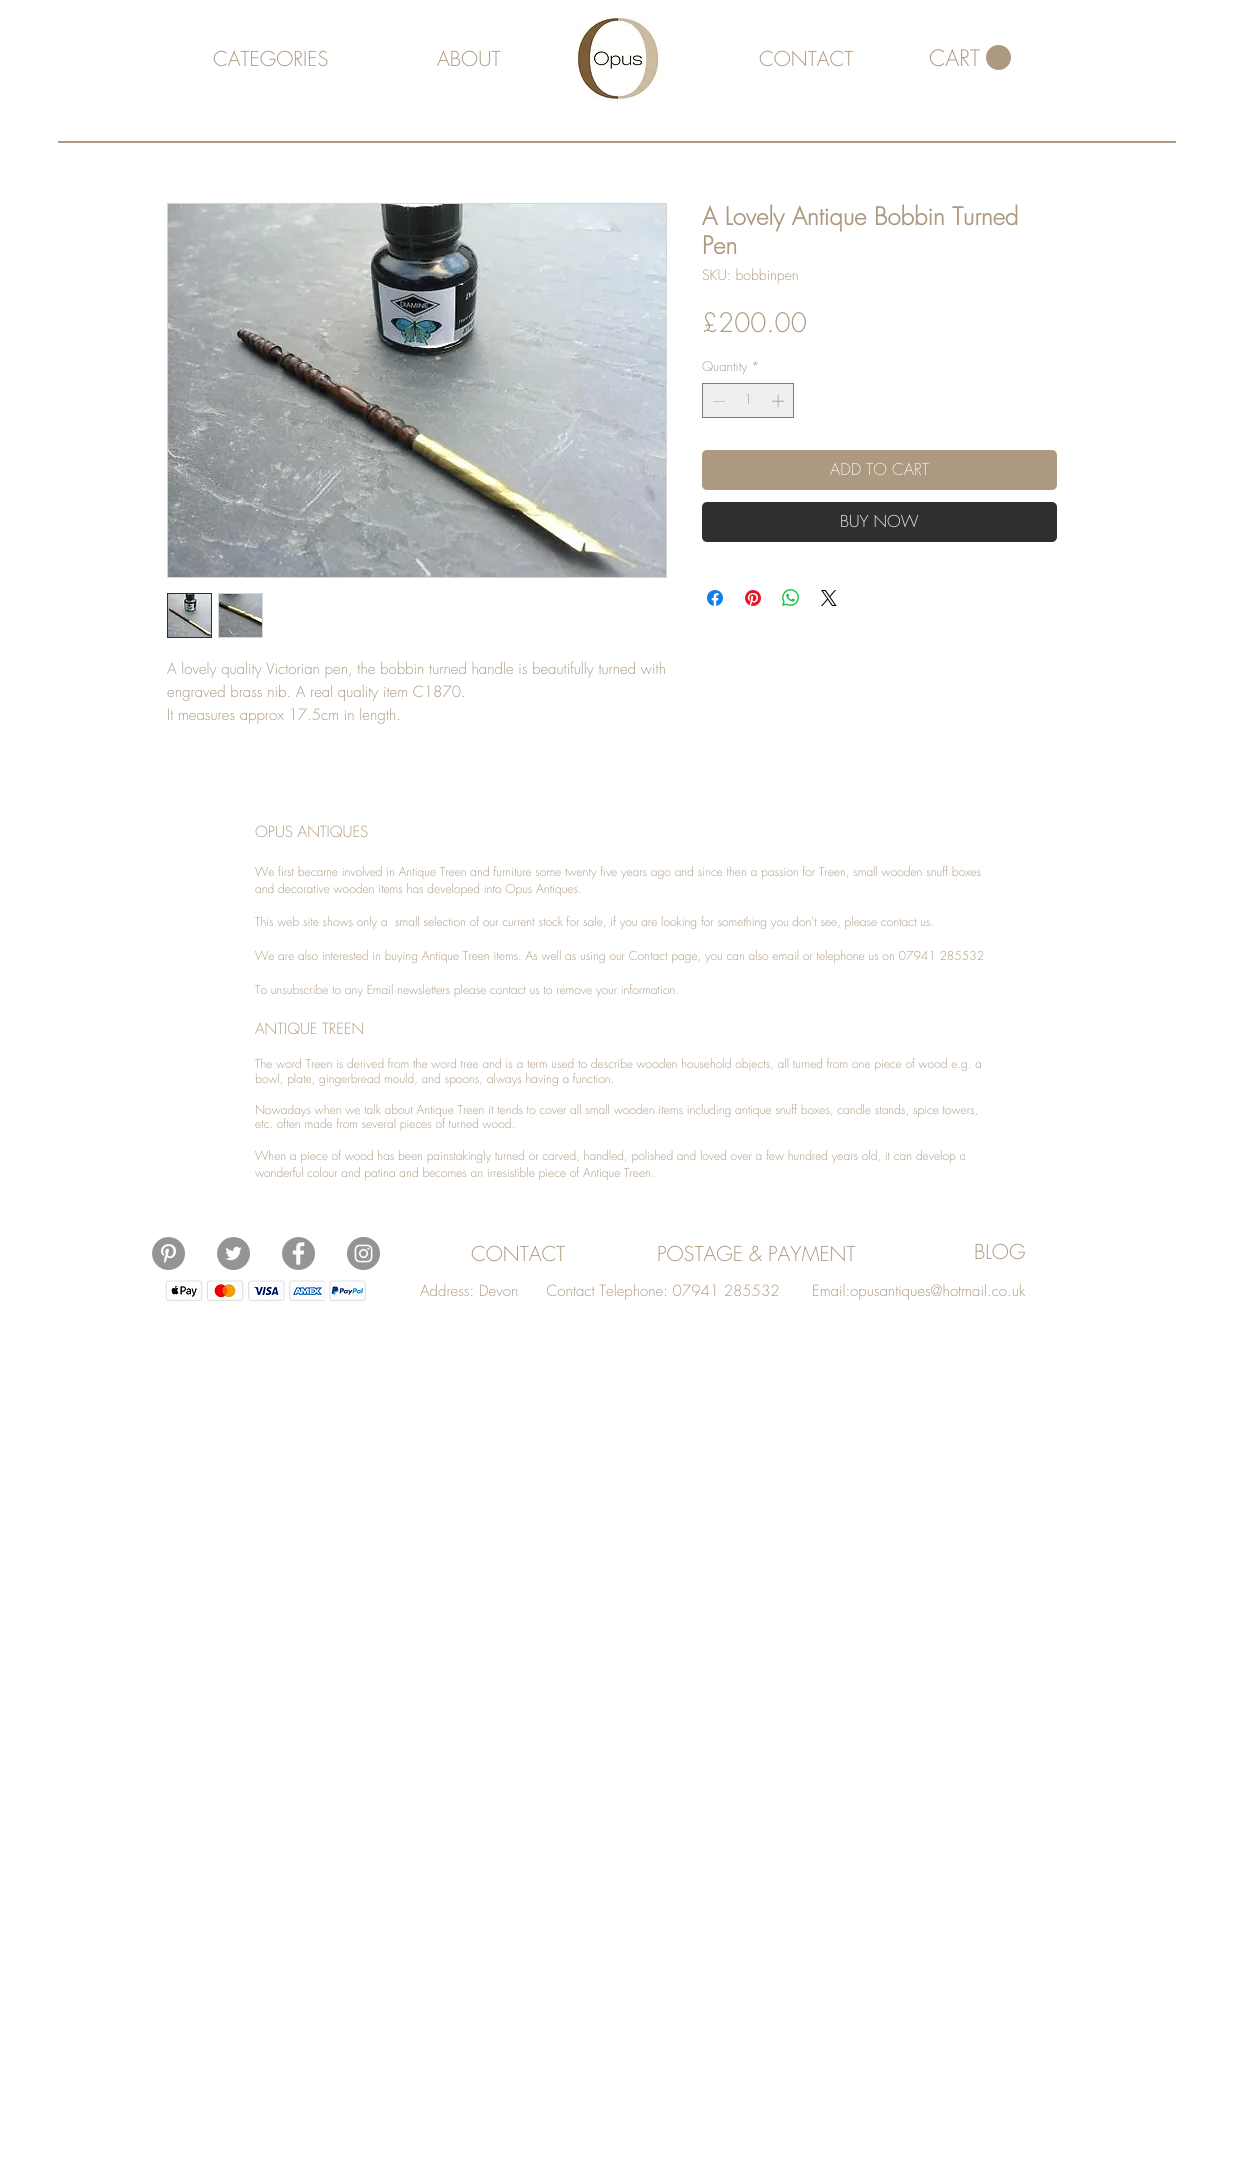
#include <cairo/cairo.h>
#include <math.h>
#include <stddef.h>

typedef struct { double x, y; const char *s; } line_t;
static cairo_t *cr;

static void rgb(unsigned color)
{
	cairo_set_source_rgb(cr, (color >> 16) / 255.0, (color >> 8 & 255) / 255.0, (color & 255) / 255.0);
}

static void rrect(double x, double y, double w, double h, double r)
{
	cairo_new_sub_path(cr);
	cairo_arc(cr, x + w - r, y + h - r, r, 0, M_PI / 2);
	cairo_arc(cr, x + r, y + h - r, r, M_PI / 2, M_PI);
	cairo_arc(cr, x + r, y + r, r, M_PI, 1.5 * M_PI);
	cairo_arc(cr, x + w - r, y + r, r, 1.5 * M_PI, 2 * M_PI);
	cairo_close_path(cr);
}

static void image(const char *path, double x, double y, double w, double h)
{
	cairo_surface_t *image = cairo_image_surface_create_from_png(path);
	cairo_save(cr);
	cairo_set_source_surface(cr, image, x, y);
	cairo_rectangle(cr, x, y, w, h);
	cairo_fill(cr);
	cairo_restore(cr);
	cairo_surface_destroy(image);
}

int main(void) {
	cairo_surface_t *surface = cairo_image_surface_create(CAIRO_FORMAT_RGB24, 1234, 2159);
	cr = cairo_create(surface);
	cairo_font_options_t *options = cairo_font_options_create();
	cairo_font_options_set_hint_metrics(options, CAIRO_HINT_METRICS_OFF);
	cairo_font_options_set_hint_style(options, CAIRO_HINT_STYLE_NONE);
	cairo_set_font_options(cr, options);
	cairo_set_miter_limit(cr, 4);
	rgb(0xffffff);
	cairo_paint(cr);
	image("img/1.png", 572, 17, 88, 85);
	rgb(0xad9880);
	cairo_arc(cr, 998.5, 57.5, 12.5, 0, 2 * M_PI);
	cairo_fill(cr);
	cairo_rectangle(cr, 58, 141, 1118, 2);
	cairo_fill(cr);
	rgb(0xedeff0);
	cairo_rectangle(cr, 702.5, 383.5, 91, 34);
	cairo_fill_preserve(cr);
	rgb(0x7b7c7c);
	cairo_set_line_width(cr, 1);
	cairo_stroke(cr);
	rgb(0xad9880);
	cairo_set_fill_rule(cr, CAIRO_FILL_RULE_EVEN_ODD);
	cairo_new_path(cr);
	cairo_move_to(cr, 725, 401);
	cairo_line_to(cr, 725, 401.5);
	cairo_line_to(cr, 713, 401.5);
	cairo_line_to(cr, 713, 401);
	cairo_close_path(cr);
	cairo_fill(cr);
	image("img/2.png", 772, 395, 13, 13);
	rrect(702, 450, 355, 40, 5);
	cairo_fill(cr);
	rgb(0x2f2f2f);
	rrect(702, 502, 355, 40, 5);
	cairo_fill(cr);
	image("img/3.png", 707, 590, 16, 16);
	image("img/4.png", 745, 590, 16, 16);
	image("img/5.png", 782, 589, 17, 17);
	image("img/6.png", 821, 590, 16, 16);
	cairo_rectangle(cr, 167.5, 203.5, 499, 374);
	rgb(0xd6d6d6);
	cairo_stroke(cr);
	image("img/7.png", 168, 204, 498, 373);
	cairo_rectangle(cr, 167.5, 593.5, 44, 44);
	rgb(0x2f2f2f);
	cairo_stroke(cr);
	image("img/8.png", 168, 594, 43, 43);
	rgb(0xd6d6d6);
	cairo_rectangle(cr, 218, 593, 45, 45);
	cairo_fill(cr);
	image("img/9.png", 219, 594, 43, 43);
	image("img/10.png", 152, 1237, 33, 33);
	image("img/11.png", 217, 1237, 33, 33);
	image("img/12.png", 282, 1237, 33, 33);
	image("img/13.png", 347, 1237, 33, 33);
	image("img/14.png", 161, 1277, 163, 28);
	image("img/15.png", 324, 1277, 45, 28);
	cairo_select_font_face(cr, "futura Light", CAIRO_FONT_SLANT_NORMAL, CAIRO_FONT_WEIGHT_NORMAL);
	cairo_set_font_size(cr, 20);
	rgb(0xad9880);
	{
		static const line_t items[] = {
			{213, 66, "CATEGORIES"},
			{437, 66, "ABOUT"},
			{759, 66, "CONTACT"},
		};
		for (size_t i = 0; i < sizeof items / sizeof *items; i++) {
			cairo_move_to(cr, items[i].x, items[i].y);
			cairo_show_text(cr, items[i].s);
		}
	}
	cairo_set_font_size(cr, 22);
	cairo_move_to(cr, 929, 66);
	cairo_show_text(cr, "CART");
	cairo_select_font_face(cr, "futura", CAIRO_FONT_SLANT_NORMAL, CAIRO_FONT_WEIGHT_BOLD);
	cairo_set_font_size(cr, 24);
	cairo_move_to(cr, 702, 225);
	cairo_show_text(cr, "A Lovely Antique Bobbin Turned");
	cairo_move_to(cr, 702, 254);
	cairo_show_text(cr, "Pen");
	cairo_select_font_face(cr, "futura Light", CAIRO_FONT_SLANT_NORMAL, CAIRO_FONT_WEIGHT_NORMAL);
	cairo_set_font_size(cr, 14);
	cairo_move_to(cr, 702, 280);
	cairo_show_text(cr, "SKU: bobbinpen");
	cairo_set_font_size(cr, 26);
	cairo_move_to(cr, 702, 332);
	cairo_show_text(cr, "£200.00");
	cairo_set_font_size(cr, 13);
	cairo_move_to(cr, 702, 371);
	cairo_show_text(cr, "Quantity *");
	cairo_move_to(cr, 744, 404);
	cairo_show_text(cr, "1");
	cairo_set_font_size(cr, 16);
	rgb(0xedeff0);
	cairo_move_to(cr, 830, 475);
	cairo_show_text(cr, "ADD TO CART");
	cairo_move_to(cr, 840, 527);
	cairo_show_text(cr, "BUY NOW");
	cairo_set_font_size(cr, 15);
	rgb(0xad9880);
	{
		static const line_t items[] = {
			{167, 674, "A lovely quality Victorian pen, the bobbin turned handle is beautifully turned with"},
			{167, 697, "engraved brass nib. A real quality item C1870."},
			{167, 720, "It measures approx 17.5cm in length."},
			{255, 837, "OPUS ANTIQUES"},
		};
		for (size_t i = 0; i < sizeof items / sizeof *items; i++) {
			cairo_move_to(cr, items[i].x, items[i].y);
			cairo_show_text(cr, items[i].s);
		}
	}
	cairo_set_font_size(cr, 12);
	{
		static const line_t items[] = {
			{255, 876, "We first became involved in Antique Treen and furniture some twenty five years ago and since then a passion for Treen, small wooden snuff boxes"},
			{255, 893, "and decorative wooden items has developed into Opus Antiques."},
			{255, 926, "This web site shows only a  small selection of our current stock for sale, if you are looking for something you don't see, please contact us."},
			{255, 960, "We are also interested in buying Antique Treen items. As well as using our Contact page, you can also email or telephone us on 07941 285532"},
			{255, 994, "To unsubscribe to any Email newsletters please contact us to remove your information."},
		};
		for (size_t i = 0; i < sizeof items / sizeof *items; i++) {
			cairo_move_to(cr, items[i].x, items[i].y);
			cairo_show_text(cr, items[i].s);
		}
	}
	cairo_set_font_size(cr, 15);
	cairo_move_to(cr, 255, 1034);
	cairo_show_text(cr, "ANTIQUE TREEN");
	cairo_set_font_size(cr, 12);
	{
		static const line_t items[] = {
			{255, 1068, "The word Treen is derived from the word tree and is a term used to describe wooden household objects, all turned from one piece of wood e.g. a"},
			{255, 1083, "bowl, plate, gingerbread mould, and spoons, always having a function."},
			{255, 1114, "Nowadays when we talk about Antique Treen it tends to cover all small wooden items including antique snuff boxes, candle stands, spice towers,"},
			{255, 1128, "etc. often made from several pieces of turned wood."},
			{255, 1160, "When a piece of wood has been painstakingly turned or carved, handled, polished and loved over a few hundred years old, it can develop a"},
			{255, 1177, "wonderful colour and patina and becomes an irresistible piece of Antique Treen."},
		};
		for (size_t i = 0; i < sizeof items / sizeof *items; i++) {
			cairo_move_to(cr, items[i].x, items[i].y);
			cairo_show_text(cr, items[i].s);
		}
	}
	cairo_set_font_size(cr, 20);
	{
		static const line_t items[] = {
			{471, 1261, "CONTACT"},
			{657, 1261, "POSTAGE & PAYMENT"},
			{974, 1259, "BLOG"},
		};
		for (size_t i = 0; i < sizeof items / sizeof *items; i++) {
			cairo_move_to(cr, items[i].x, items[i].y);
			cairo_show_text(cr, items[i].s);
		}
	}
	cairo_set_font_size(cr, 15);
	cairo_move_to(cr, 420, 1296);
	cairo_show_text(cr, "Address: Devon      Contact Telephone: 07941 285532       Email:opusantiques@hotmail.co.uk");
	cairo_surface_write_to_png(surface, "page.png");
	cairo_font_options_destroy(options);
	cairo_destroy(cr);
	cairo_surface_destroy(surface);
	return 0;
}
